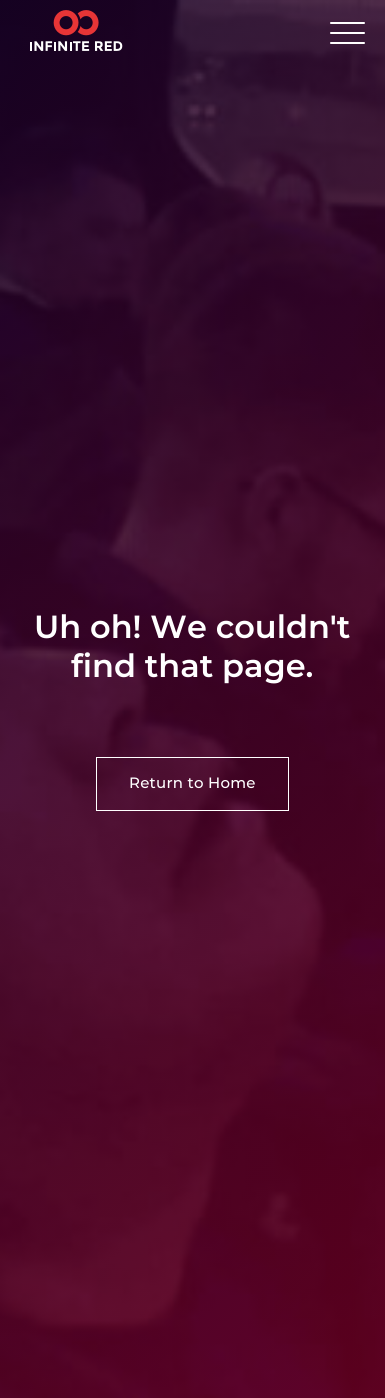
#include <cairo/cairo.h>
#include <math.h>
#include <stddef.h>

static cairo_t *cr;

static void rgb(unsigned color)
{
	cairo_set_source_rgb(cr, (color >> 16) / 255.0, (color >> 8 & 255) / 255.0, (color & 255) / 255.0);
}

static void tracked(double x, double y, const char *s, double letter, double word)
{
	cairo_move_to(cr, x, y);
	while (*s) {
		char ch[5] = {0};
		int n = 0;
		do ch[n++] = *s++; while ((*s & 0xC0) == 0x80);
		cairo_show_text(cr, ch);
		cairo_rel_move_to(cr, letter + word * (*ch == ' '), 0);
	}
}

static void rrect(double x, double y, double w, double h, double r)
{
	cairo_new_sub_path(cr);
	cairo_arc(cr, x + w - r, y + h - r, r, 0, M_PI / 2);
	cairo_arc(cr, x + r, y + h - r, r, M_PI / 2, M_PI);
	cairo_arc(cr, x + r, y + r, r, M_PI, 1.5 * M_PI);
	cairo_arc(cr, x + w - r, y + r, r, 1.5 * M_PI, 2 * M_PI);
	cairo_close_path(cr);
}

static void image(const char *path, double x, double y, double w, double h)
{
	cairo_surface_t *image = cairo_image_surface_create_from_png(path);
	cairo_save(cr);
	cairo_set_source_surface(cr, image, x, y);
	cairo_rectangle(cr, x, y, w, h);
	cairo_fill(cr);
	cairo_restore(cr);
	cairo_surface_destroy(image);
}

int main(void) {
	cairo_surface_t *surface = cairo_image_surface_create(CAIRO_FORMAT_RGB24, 385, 1398);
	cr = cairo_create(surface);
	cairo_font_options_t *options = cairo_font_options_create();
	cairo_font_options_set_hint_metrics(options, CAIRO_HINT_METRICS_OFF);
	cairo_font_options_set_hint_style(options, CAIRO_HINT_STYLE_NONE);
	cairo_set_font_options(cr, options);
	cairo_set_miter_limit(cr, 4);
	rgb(0xffffff);
	cairo_paint(cr);
	image("img/2.png", 0, 0, 385, 1398);
	image("img/1.png", 30, 10, 93, 41);
	rgb(0xffffff);
	rrect(330, 22, 35, 2, 1);
	cairo_fill(cr);
	rrect(330, 32, 35, 2, 1);
	cairo_fill(cr);
	rrect(330, 42, 35, 2, 1);
	cairo_fill(cr);
	cairo_rectangle(cr, 96.5, 757.5, 192, 53);
	cairo_set_line_width(cr, 1);
	cairo_stroke(cr);
	cairo_select_font_face(cr, "Montserrat SemiBold", CAIRO_FONT_SLANT_NORMAL, CAIRO_FONT_WEIGHT_NORMAL);
	cairo_set_font_size(cr, 32);
	cairo_move_to(cr, 34, 638);
	cairo_show_text(cr, "Uh oh! We couldn't");
	cairo_move_to(cr, 71, 677);
	cairo_show_text(cr, "find that page.");
	cairo_select_font_face(cr, "Montserrat Medium", CAIRO_FONT_SLANT_NORMAL, CAIRO_FONT_WEIGHT_NORMAL);
	cairo_set_font_size(cr, 15);
	tracked(129, 788, "Return to Home", 0.25, 0);
	cairo_surface_write_to_png(surface, "page.png");
	cairo_font_options_destroy(options);
	cairo_destroy(cr);
	cairo_surface_destroy(surface);
	return 0;
}
